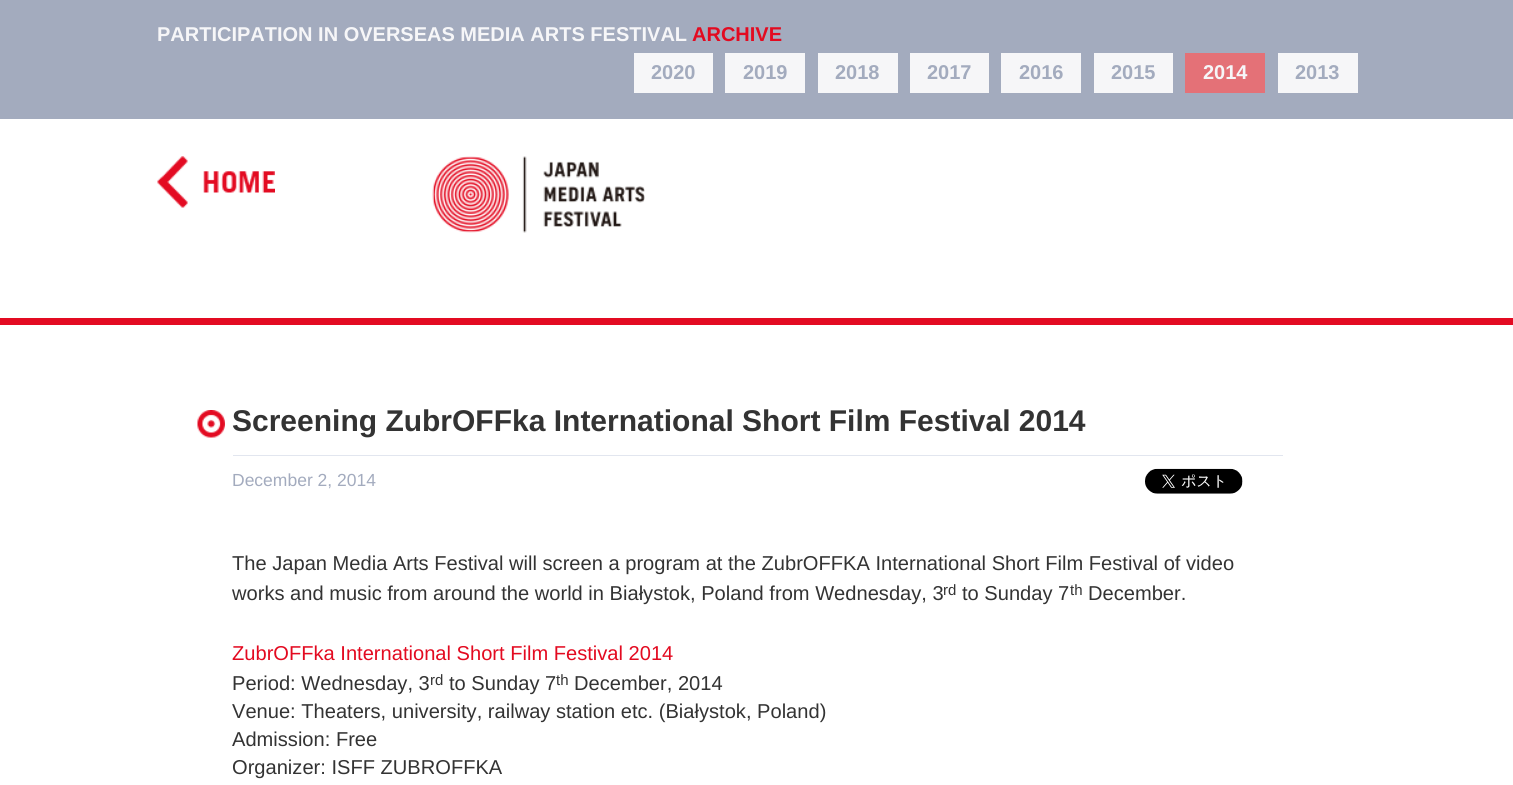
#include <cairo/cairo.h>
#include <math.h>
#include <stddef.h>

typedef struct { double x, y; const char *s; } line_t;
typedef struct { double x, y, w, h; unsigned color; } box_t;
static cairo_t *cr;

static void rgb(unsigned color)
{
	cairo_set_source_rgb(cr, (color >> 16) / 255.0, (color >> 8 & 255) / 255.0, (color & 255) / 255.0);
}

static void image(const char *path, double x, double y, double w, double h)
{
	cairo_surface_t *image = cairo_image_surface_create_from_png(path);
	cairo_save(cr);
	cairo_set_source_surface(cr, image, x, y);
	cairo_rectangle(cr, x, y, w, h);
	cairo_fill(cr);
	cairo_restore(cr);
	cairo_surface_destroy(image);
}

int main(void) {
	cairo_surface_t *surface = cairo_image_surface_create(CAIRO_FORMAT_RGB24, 1513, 785);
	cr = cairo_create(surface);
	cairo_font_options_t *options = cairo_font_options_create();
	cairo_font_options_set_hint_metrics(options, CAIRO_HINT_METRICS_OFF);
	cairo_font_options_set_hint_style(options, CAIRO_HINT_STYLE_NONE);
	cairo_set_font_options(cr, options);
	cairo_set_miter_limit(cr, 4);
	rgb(0xffffff);
	cairo_paint(cr);
	{
		static const box_t items[] = {
			{0, 0, 1513, 119, 0xa3abbe},
			{634, 53, 79, 40, 0xf6f6f8},
			{725, 53, 80, 40, 0xf6f6f8},
			{818, 53, 80, 40, 0xf6f6f8},
			{910, 53, 79, 40, 0xf6f6f8},
			{1001, 53, 80, 40, 0xf6f6f8},
			{1094, 53, 79, 40, 0xf6f6f8},
			{1185, 53, 80, 40, 0xe47177},
			{1278, 53, 80, 40, 0xf6f6f8},
		};
		for (size_t i = 0; i < sizeof items / sizeof *items; i++) {
			rgb(items[i].color);
			cairo_rectangle(cr, items[i].x, items[i].y, items[i].w, items[i].h);
			cairo_fill(cr);
		}
	}
	image("img/1.png", 157, 156, 118, 52);
	image("img/2.png", 432, 156, 213, 77);
	rgb(0xe30b22);
	cairo_rectangle(cr, 0, 318, 1513, 7);
	cairo_fill(cr);
	rgb(0xe2e6ef);
	cairo_rectangle(cr, 233, 455, 1050, 1);
	cairo_fill(cr);
	image("img/3.png", 197, 410, 28, 28);
	image("img/4.png", 1145, 468, 98, 26);
	cairo_select_font_face(cr, "Liberation Sans", CAIRO_FONT_SLANT_NORMAL, CAIRO_FONT_WEIGHT_BOLD);
	cairo_set_font_size(cr, 20);
	rgb(0xf6f6f8);
	cairo_move_to(cr, 157, 41);
	cairo_show_text(cr, "PARTICIPATION IN OVERSEAS MEDIA ARTS FESTIVAL");
	rgb(0xe30a20);
	cairo_move_to(cr, 692, 41);
	cairo_show_text(cr, "ARCHIVE");
	rgb(0xa3abbe);
	{
		static const line_t items[] = {
			{651, 79, "2020"},
			{743, 79, "2019"},
			{835, 79, "2018"},
			{927, 79, "2017"},
			{1019, 79, "2016"},
			{1111, 79, "2015"},
		};
		for (size_t i = 0; i < sizeof items / sizeof *items; i++) {
			cairo_move_to(cr, items[i].x, items[i].y);
			cairo_show_text(cr, items[i].s);
		}
	}
	rgb(0xf6f6f8);
	cairo_move_to(cr, 1203, 79);
	cairo_show_text(cr, "2014");
	rgb(0xa3abbe);
	cairo_move_to(cr, 1295, 79);
	cairo_show_text(cr, "2013");
	cairo_set_font_size(cr, 30);
	rgb(0x333333);
	cairo_move_to(cr, 232, 431);
	cairo_show_text(cr, "Screening ZubrOFFka International Short Film Festival 2014");
	cairo_select_font_face(cr, "Liberation Sans", CAIRO_FONT_SLANT_NORMAL, CAIRO_FONT_WEIGHT_NORMAL);
	cairo_set_font_size(cr, 17.5);
	rgb(0xa3abbe);
	cairo_move_to(cr, 232, 486);
	cairo_show_text(cr, "December 2, 2014");
	cairo_set_font_size(cr, 20.1);
	rgb(0x333333);
	cairo_move_to(cr, 232, 570);
	cairo_show_text(cr, "The Japan Media Arts Festival will screen a program at the ZubrOFFKA International Short Film Festival of video");
	cairo_move_to(cr, 232, 600);
	cairo_show_text(cr, "works and music from around the world in Białystok, Poland from Wednesday, 3");
	cairo_set_font_size(cr, 15);
	cairo_move_to(cr, 943, 595);
	cairo_show_text(cr, "rd");
	cairo_set_font_size(cr, 20.1);
	cairo_move_to(cr, 962, 600);
	cairo_show_text(cr, "to Sunday 7");
	cairo_set_font_size(cr, 15);
	cairo_move_to(cr, 1070, 595);
	cairo_show_text(cr, "th");
	cairo_set_font_size(cr, 20.1);
	cairo_move_to(cr, 1088, 600);
	cairo_show_text(cr, "December.");
	rgb(0xe30a20);
	cairo_move_to(cr, 232, 660);
	cairo_show_text(cr, "ZubrOFFka International Short Film Festival 2014");
	rgb(0x333333);
	cairo_move_to(cr, 232, 690);
	cairo_show_text(cr, "Period: Wednesday, 3");
	cairo_set_font_size(cr, 15);
	cairo_move_to(cr, 430, 685);
	cairo_show_text(cr, "rd");
	cairo_set_font_size(cr, 20.1);
	cairo_move_to(cr, 449, 690);
	cairo_show_text(cr, "to Sunday 7");
	cairo_set_font_size(cr, 15);
	cairo_move_to(cr, 556, 685);
	cairo_show_text(cr, "th");
	cairo_set_font_size(cr, 20.1);
	{
		static const line_t items[] = {
			{574, 690, "December, 2014"},
			{232, 718, "Venue: Theaters, university, railway station etc. (Białystok, Poland)"},
			{232, 746, "Admission: Free"},
			{232, 774, "Organizer: ISFF ZUBROFFKA"},
		};
		for (size_t i = 0; i < sizeof items / sizeof *items; i++) {
			cairo_move_to(cr, items[i].x, items[i].y);
			cairo_show_text(cr, items[i].s);
		}
	}
	cairo_surface_write_to_png(surface, "page.png");
	cairo_font_options_destroy(options);
	cairo_destroy(cr);
	cairo_surface_destroy(surface);
	return 0;
}
